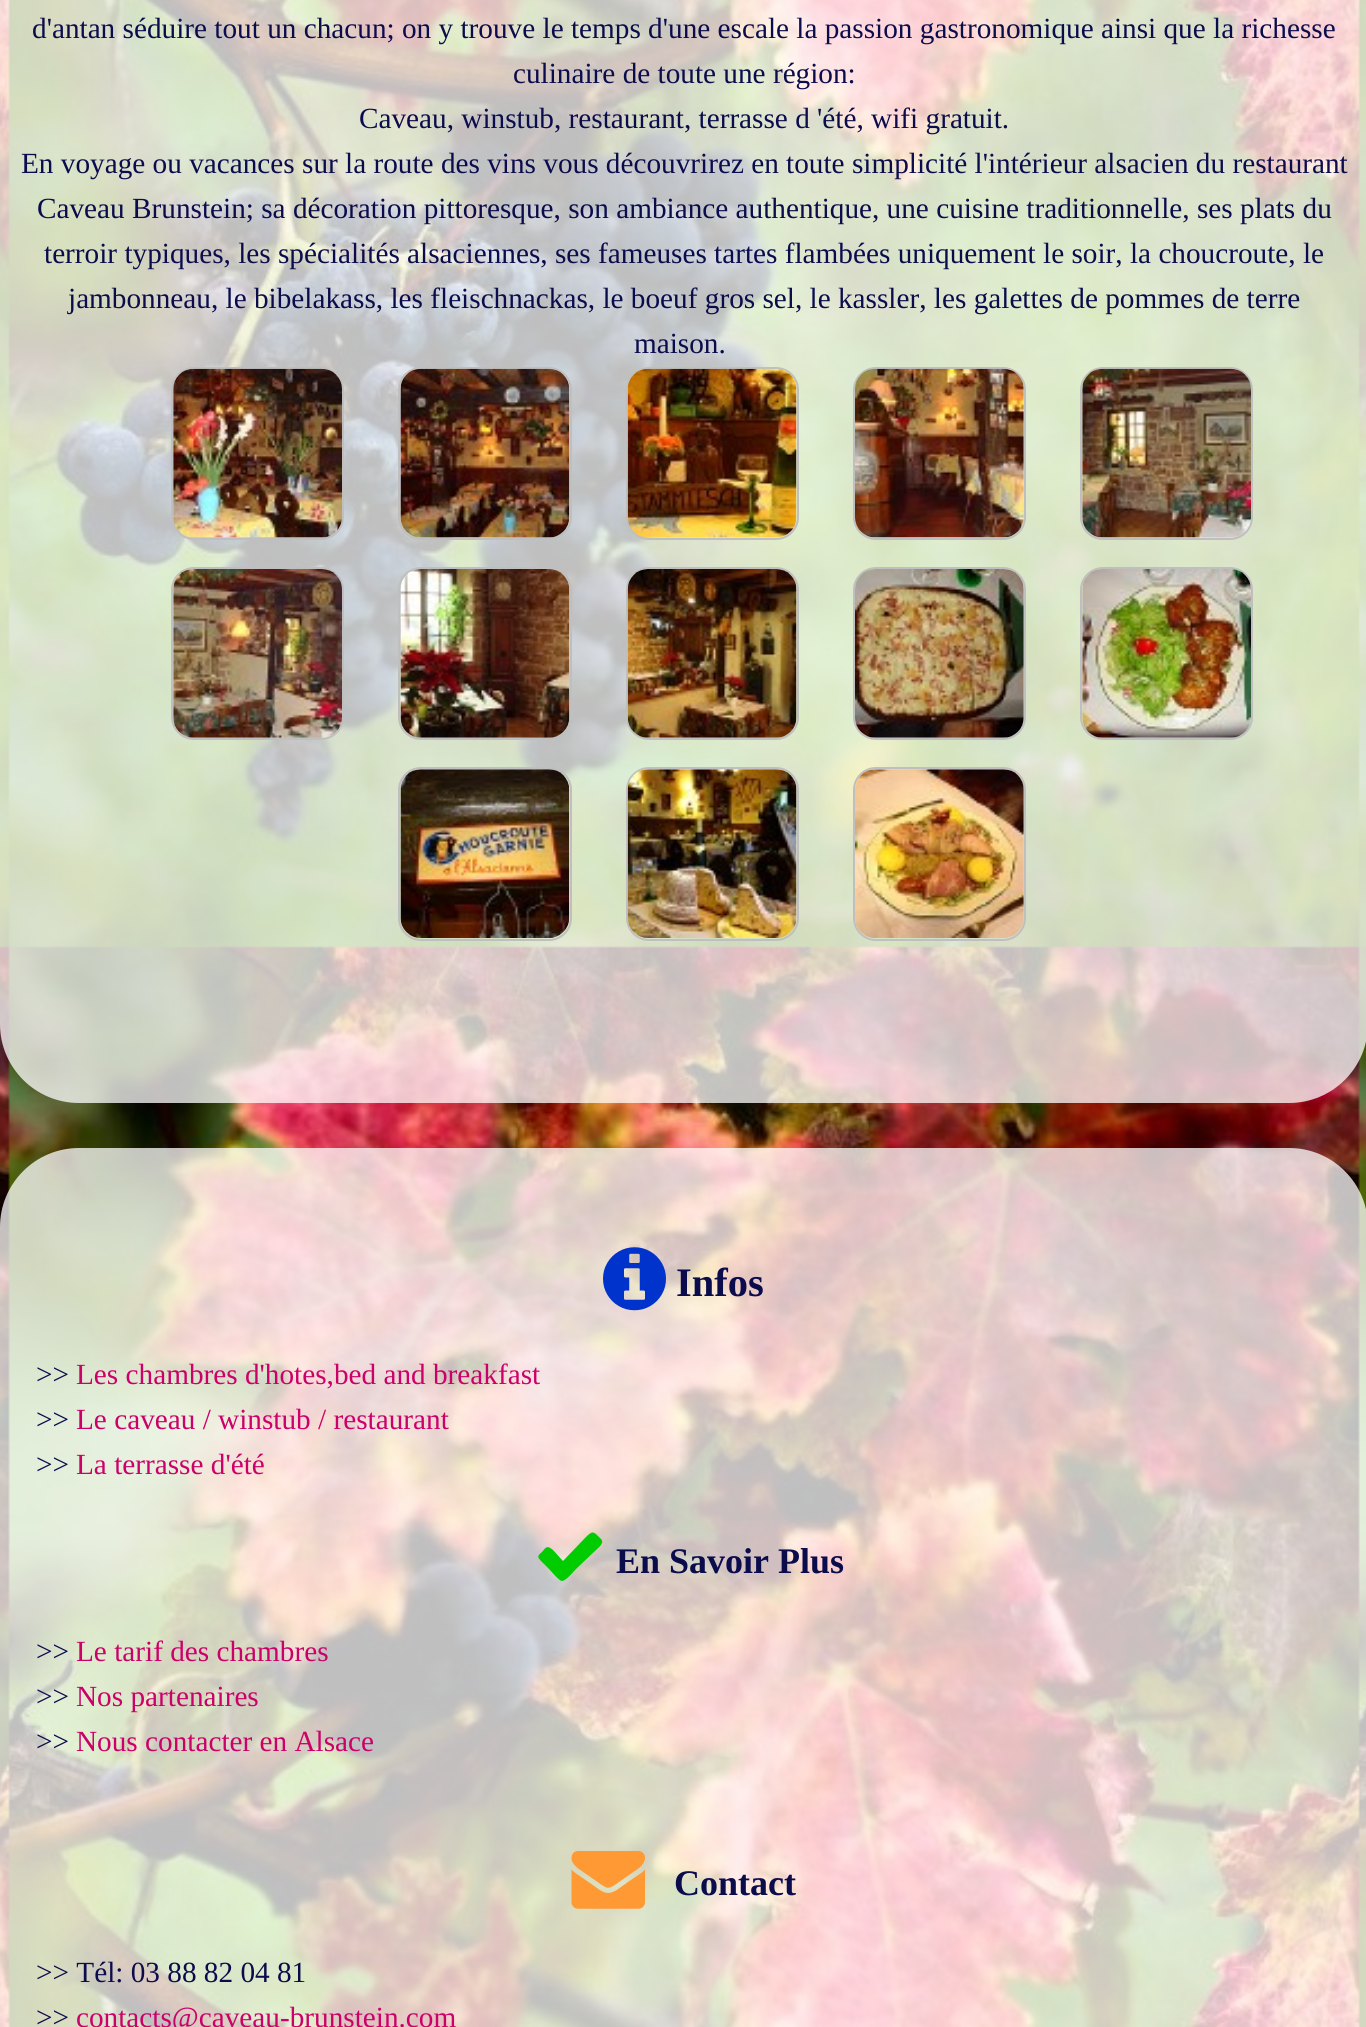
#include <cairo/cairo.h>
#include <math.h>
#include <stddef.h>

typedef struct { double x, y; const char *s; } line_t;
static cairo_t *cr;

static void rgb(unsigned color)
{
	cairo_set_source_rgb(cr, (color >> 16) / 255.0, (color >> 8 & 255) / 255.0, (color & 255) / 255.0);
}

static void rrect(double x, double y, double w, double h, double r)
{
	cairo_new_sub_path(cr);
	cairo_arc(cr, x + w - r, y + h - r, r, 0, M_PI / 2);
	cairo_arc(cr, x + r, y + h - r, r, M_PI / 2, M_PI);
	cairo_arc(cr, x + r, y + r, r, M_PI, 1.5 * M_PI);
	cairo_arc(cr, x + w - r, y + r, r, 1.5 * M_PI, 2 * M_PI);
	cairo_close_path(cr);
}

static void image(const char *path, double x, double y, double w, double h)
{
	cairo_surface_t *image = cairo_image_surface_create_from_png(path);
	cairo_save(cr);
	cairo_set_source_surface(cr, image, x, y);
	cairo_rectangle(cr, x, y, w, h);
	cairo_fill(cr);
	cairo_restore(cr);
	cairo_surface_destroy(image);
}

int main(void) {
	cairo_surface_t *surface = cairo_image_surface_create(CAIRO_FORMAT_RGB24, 1366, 2027);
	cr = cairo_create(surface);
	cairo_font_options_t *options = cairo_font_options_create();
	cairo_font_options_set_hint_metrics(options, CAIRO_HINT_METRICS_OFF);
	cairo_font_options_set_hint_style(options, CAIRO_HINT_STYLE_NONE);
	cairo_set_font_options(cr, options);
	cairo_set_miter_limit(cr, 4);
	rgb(0xffffff);
	cairo_paint(cr);
	image("img/1.png", 0, 0, 1366, 2027);
	cairo_set_source_rgba(cr, 1, 1, 1, 0.75);
	rrect(0, -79, 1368, 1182, 79);
	cairo_fill(cr);
	rrect(172, 368, 171, 171, 22);
	rgb(0xbfbfbf);
	cairo_stroke(cr);
	rrect(399, 368, 172, 171, 22);
	cairo_stroke(cr);
	rrect(627, 368, 171, 171, 22);
	cairo_stroke(cr);
	rrect(854, 368, 171, 171, 22);
	cairo_stroke(cr);
	rrect(1081, 368, 171, 171, 22);
	cairo_stroke(cr);
	image("img/2.png", 173, 368, 169, 170);
	image("img/3.png", 400, 368, 170, 170);
	image("img/4.png", 627, 368, 170, 170);
	image("img/5.png", 855, 368, 169, 170);
	image("img/6.png", 1082, 368, 169, 170);
	rrect(172, 568, 171, 171, 22);
	cairo_stroke(cr);
	rrect(399, 568, 172, 171, 22);
	cairo_stroke(cr);
	rrect(627, 568, 171, 171, 22);
	cairo_stroke(cr);
	rrect(854, 568, 171, 171, 22);
	cairo_stroke(cr);
	rrect(1081, 568, 171, 171, 22);
	cairo_stroke(cr);
	image("img/7.png", 173, 569, 169, 169);
	image("img/8.png", 400, 569, 170, 169);
	image("img/9.png", 627, 569, 170, 169);
	image("img/10.png", 855, 569, 169, 169);
	image("img/11.png", 1082, 569, 169, 169);
	rrect(399, 768, 172, 172, 22);
	cairo_stroke(cr);
	rrect(627, 768, 171, 172, 22);
	cairo_stroke(cr);
	rrect(854, 768, 171, 172, 22);
	cairo_stroke(cr);
	image("img/12.png", 400, 769, 170, 169);
	image("img/13.png", 627, 769, 170, 169);
	image("img/14.png", 855, 769, 169, 169);
	cairo_set_source_rgba(cr, 1, 1, 1, 0.75);
	rrect(0, 1148, 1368, 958, 79);
	cairo_fill(cr);
	image("img/15.png", 603, 1247, 63, 64);
	rgb(0x00cc00);
	cairo_new_path(cr);
	cairo_move_to(cr, 601, 1539);
	cairo_curve_to(cr, 605, 1543, 598, 1548, 596, 1550);
	cairo_line_to(cr, 576, 1569);
	cairo_curve_to(cr, 574, 1571, 566, 1581, 562, 1581);
	cairo_curve_to(cr, 559, 1581, 551, 1571, 549, 1569);
	cairo_line_to(cr, 542, 1562);
	cairo_curve_to(cr, 537, 1557, 537, 1556, 542, 1552);
	cairo_curve_to(cr, 546, 1547, 547, 1545, 553, 1550);
	cairo_line_to(cr, 563, 1561);
	cairo_line_to(cr, 585, 1538);
	cairo_curve_to(cr, 593, 1530, 593, 1531, 601, 1539);
	cairo_close_path(cr);
	cairo_fill(cr);
	image("img/16.png", 571, 1851, 74, 58);
	cairo_select_font_face(cr, "Liberation Serif", CAIRO_FONT_SLANT_NORMAL, CAIRO_FONT_WEIGHT_NORMAL);
	cairo_set_font_size(cr, 29.25);
	rgb(0x0b0c4c);
	{
		static const line_t items[] = {
			{32, 38, "d'antan séduire tout un chacun; on y trouve le temps d'une escale la passion gastronomique ainsi que la richesse"},
			{513, 83, "culinaire de toute une région:"},
			{359, 128, "Caveau, winstub, restaurant, terrasse d 'été, wifi gratuit."},
			{21, 173, "En voyage ou vacances sur la route des vins vous découvrirez en toute simplicité l'intérieur alsacien du restaurant"},
			{37, 218, "Caveau Brunstein; sa décoration pittoresque, son ambiance authentique, une cuisine traditionnelle, ses plats du"},
			{44, 263, "terroir typiques, les spécialités alsaciennes, ses fameuses tartes flambées uniquement le soir, la choucroute, le"},
			{68, 308, "jambonneau, le bibelakass, les fleischnackas, le boeuf gros sel, le kassler, les galettes de pommes de terre"},
			{634, 353, "maison."},
		};
		for (size_t i = 0; i < sizeof items / sizeof *items; i++) {
			cairo_move_to(cr, items[i].x, items[i].y);
			cairo_show_text(cr, items[i].s);
		}
	}
	cairo_select_font_face(cr, "Liberation Serif", CAIRO_FONT_SLANT_NORMAL, CAIRO_FONT_WEIGHT_BOLD);
	cairo_set_font_size(cr, 40.5);
	cairo_move_to(cr, 676, 1296);
	cairo_show_text(cr, "Infos");
	cairo_select_font_face(cr, "Liberation Serif", CAIRO_FONT_SLANT_NORMAL, CAIRO_FONT_WEIGHT_NORMAL);
	cairo_set_font_size(cr, 29.25);
	cairo_move_to(cr, 36, 1384);
	cairo_show_text(cr, ">>");
	rgb(0xcc0069);
	cairo_move_to(cr, 76, 1384);
	cairo_show_text(cr, "Les chambres d'hotes,bed and breakfast");
	rgb(0x0b0c4c);
	cairo_move_to(cr, 36, 1429);
	cairo_show_text(cr, ">>");
	rgb(0xcc0069);
	cairo_move_to(cr, 76, 1429);
	cairo_show_text(cr, "Le caveau / winstub / restaurant");
	rgb(0x0b0c4c);
	cairo_move_to(cr, 36, 1474);
	cairo_show_text(cr, ">>");
	rgb(0xcc0069);
	cairo_move_to(cr, 76, 1474);
	cairo_show_text(cr, "La terrasse d'été");
	cairo_select_font_face(cr, "Liberation Serif", CAIRO_FONT_SLANT_NORMAL, CAIRO_FONT_WEIGHT_BOLD);
	cairo_set_font_size(cr, 36);
	rgb(0x0b0c4c);
	cairo_move_to(cr, 616, 1573);
	cairo_show_text(cr, "En Savoir Plus");
	cairo_select_font_face(cr, "Liberation Serif", CAIRO_FONT_SLANT_NORMAL, CAIRO_FONT_WEIGHT_NORMAL);
	cairo_set_font_size(cr, 29.25);
	cairo_move_to(cr, 36, 1661);
	cairo_show_text(cr, ">>");
	rgb(0xcc0069);
	cairo_move_to(cr, 76, 1661);
	cairo_show_text(cr, "Le tarif des chambres");
	rgb(0x0b0c4c);
	cairo_move_to(cr, 36, 1706);
	cairo_show_text(cr, ">>");
	rgb(0xcc0069);
	cairo_move_to(cr, 76, 1706);
	cairo_show_text(cr, "Nos partenaires");
	rgb(0x0b0c4c);
	cairo_move_to(cr, 36, 1751);
	cairo_show_text(cr, ">>");
	rgb(0xcc0069);
	cairo_move_to(cr, 76, 1751);
	cairo_show_text(cr, "Nous contacter en Alsace");
	cairo_select_font_face(cr, "Liberation Serif", CAIRO_FONT_SLANT_NORMAL, CAIRO_FONT_WEIGHT_BOLD);
	cairo_set_font_size(cr, 36);
	rgb(0x0b0c4c);
	cairo_move_to(cr, 674, 1895);
	cairo_show_text(cr, "Contact");
	cairo_select_font_face(cr, "Liberation Serif", CAIRO_FONT_SLANT_NORMAL, CAIRO_FONT_WEIGHT_NORMAL);
	cairo_set_font_size(cr, 29.25);
	cairo_move_to(cr, 36, 1982);
	cairo_show_text(cr, ">> Tél: 03 88 82 04 81");
	cairo_move_to(cr, 36, 2027);
	cairo_show_text(cr, ">>");
	rgb(0xcc0069);
	cairo_move_to(cr, 76, 2027);
	cairo_show_text(cr, "contacts@caveau-brunstein.com");
	cairo_surface_write_to_png(surface, "page.png");
	cairo_font_options_destroy(options);
	cairo_destroy(cr);
	cairo_surface_destroy(surface);
	return 0;
}
